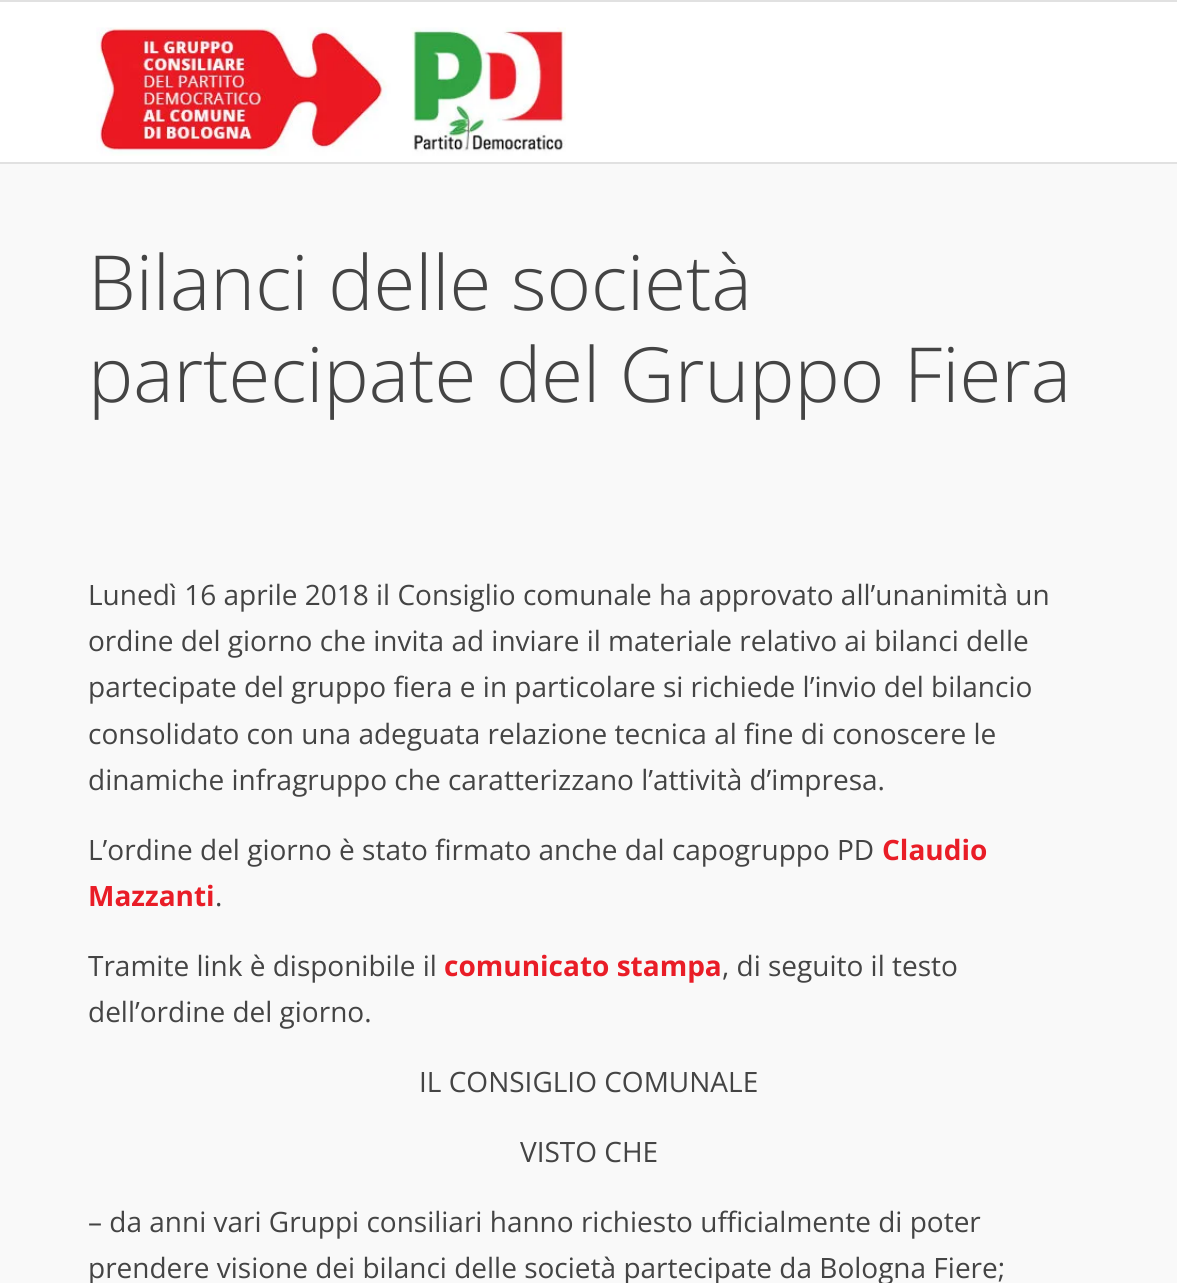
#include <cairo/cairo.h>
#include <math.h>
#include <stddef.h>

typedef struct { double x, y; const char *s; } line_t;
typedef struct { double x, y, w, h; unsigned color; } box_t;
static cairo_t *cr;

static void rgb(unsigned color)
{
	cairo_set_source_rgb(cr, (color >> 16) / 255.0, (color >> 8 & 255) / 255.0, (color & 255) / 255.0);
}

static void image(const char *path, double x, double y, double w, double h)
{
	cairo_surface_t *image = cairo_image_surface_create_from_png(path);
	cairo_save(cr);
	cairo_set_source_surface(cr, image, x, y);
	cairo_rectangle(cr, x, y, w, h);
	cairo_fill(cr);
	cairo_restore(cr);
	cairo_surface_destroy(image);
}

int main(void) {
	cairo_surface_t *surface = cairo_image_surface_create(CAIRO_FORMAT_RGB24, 1177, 1283);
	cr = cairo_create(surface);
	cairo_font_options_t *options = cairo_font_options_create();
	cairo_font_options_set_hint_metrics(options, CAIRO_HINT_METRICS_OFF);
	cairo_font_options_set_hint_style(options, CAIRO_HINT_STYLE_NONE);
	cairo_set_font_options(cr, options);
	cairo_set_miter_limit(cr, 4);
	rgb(0xf9f9f9);
	cairo_paint(cr);
	{
		static const box_t items[] = {
			{0, 0, 1177, 2, 0xe1e1e1},
			{0, 162, 1177, 2, 0xe1e1e1},
			{0, 2, 1177, 160, 0xffffff},
		};
		for (size_t i = 0; i < sizeof items / sizeof *items; i++) {
			rgb(items[i].color);
			cairo_rectangle(cr, items[i].x, items[i].y, items[i].w, items[i].h);
			cairo_fill(cr);
		}
	}
	image("img/1.png", 96, 27, 470, 129);
	cairo_select_font_face(cr, "Open Sans Light", CAIRO_FONT_SLANT_NORMAL, CAIRO_FONT_WEIGHT_NORMAL);
	cairo_set_font_size(cr, 76);
	rgb(0x444444);
	cairo_move_to(cr, 88, 310);
	cairo_show_text(cr, "Bilanci delle società");
	cairo_move_to(cr, 88, 402);
	cairo_show_text(cr, "partecipate del Gruppo Fiera");
	cairo_select_font_face(cr, "Open Sans", CAIRO_FONT_SLANT_NORMAL, CAIRO_FONT_WEIGHT_NORMAL);
	cairo_set_font_size(cr, 28);
	{
		static const line_t items[] = {
			{88, 605, "Lunedì 16 aprile 2018 il Consiglio comunale ha approvato all’unanimità un"},
			{88, 651, "ordine del giorno che invita ad inviare il materiale relativo ai bilanci delle"},
			{88, 697, "partecipate del gruppo fiera e in particolare si richiede l’invio del bilancio"},
			{88, 744, "consolidato con una adeguata relazione tecnica al fine di conoscere le"},
			{88, 790, "dinamiche infragruppo che caratterizzano l’attività d’impresa."},
			{88, 860, "L’ordine del giorno è stato firmato anche dal capogruppo PD"},
		};
		for (size_t i = 0; i < sizeof items / sizeof *items; i++) {
			cairo_move_to(cr, items[i].x, items[i].y);
			cairo_show_text(cr, items[i].s);
		}
	}
	cairo_select_font_face(cr, "Open Sans", CAIRO_FONT_SLANT_NORMAL, CAIRO_FONT_WEIGHT_BOLD);
	rgb(0xe91d27);
	cairo_move_to(cr, 882, 860);
	cairo_show_text(cr, "Claudio");
	cairo_move_to(cr, 88, 906);
	cairo_show_text(cr, "Mazzanti");
	cairo_select_font_face(cr, "Open Sans", CAIRO_FONT_SLANT_NORMAL, CAIRO_FONT_WEIGHT_NORMAL);
	rgb(0x444444);
	cairo_move_to(cr, 215, 906);
	cairo_show_text(cr, ".");
	cairo_move_to(cr, 88, 976);
	cairo_show_text(cr, "Tramite link è disponibile il");
	cairo_select_font_face(cr, "Open Sans", CAIRO_FONT_SLANT_NORMAL, CAIRO_FONT_WEIGHT_BOLD);
	rgb(0xe91d27);
	cairo_move_to(cr, 444, 976);
	cairo_show_text(cr, "comunicato stampa");
	cairo_select_font_face(cr, "Open Sans", CAIRO_FONT_SLANT_NORMAL, CAIRO_FONT_WEIGHT_NORMAL);
	rgb(0x444444);
	{
		static const line_t items[] = {
			{722, 976, ", di seguito il testo"},
			{88, 1022, "dell’ordine del giorno."},
			{419, 1092, "IL CONSIGLIO COMUNALE"},
			{520, 1162, "VISTO CHE"},
			{88, 1232, "– da anni vari Gruppi consiliari hanno richiesto ufficialmente di poter"},
			{88, 1278, "prendere visione dei bilanci delle società partecipate da Bologna Fiere;"},
		};
		for (size_t i = 0; i < sizeof items / sizeof *items; i++) {
			cairo_move_to(cr, items[i].x, items[i].y);
			cairo_show_text(cr, items[i].s);
		}
	}
	cairo_surface_write_to_png(surface, "page.png");
	cairo_font_options_destroy(options);
	cairo_destroy(cr);
	cairo_surface_destroy(surface);
	return 0;
}
